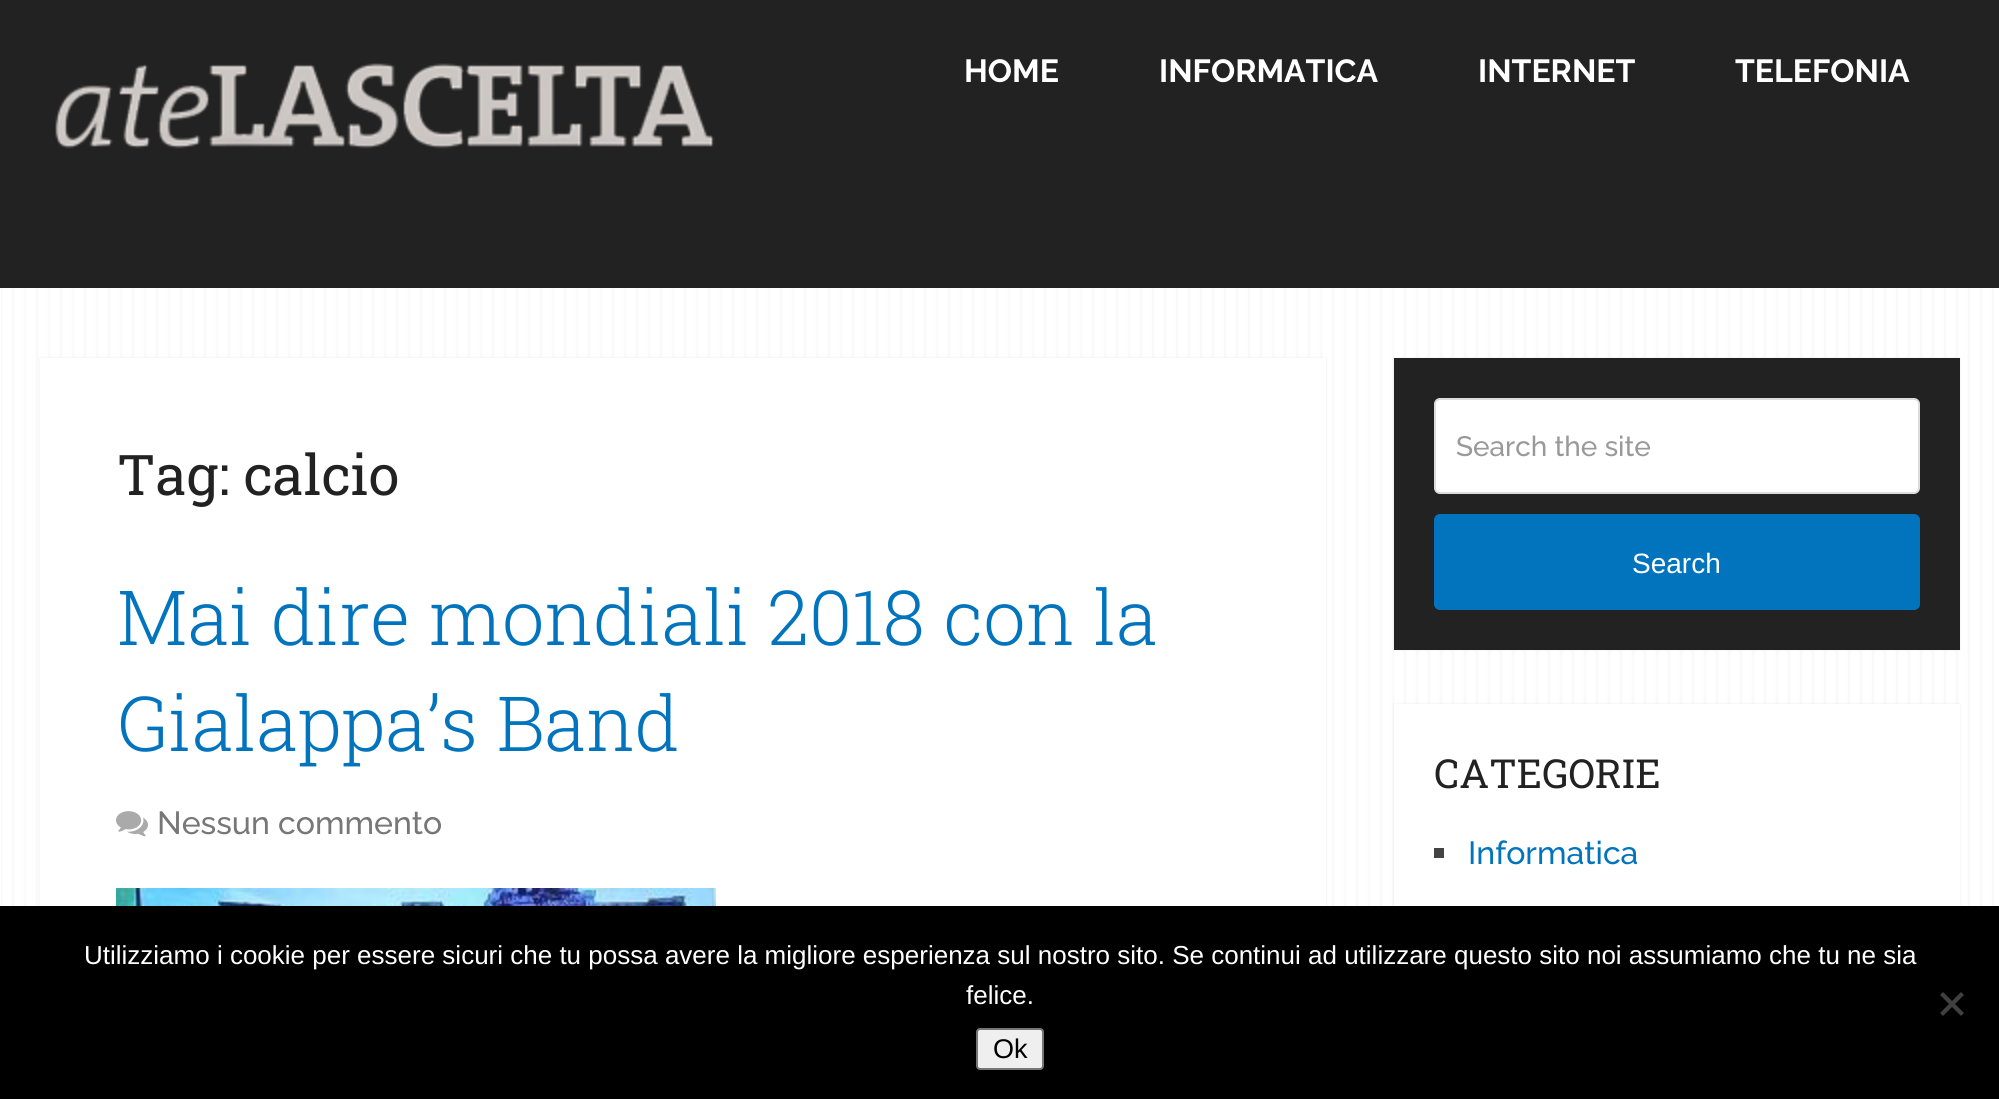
#include <cairo/cairo.h>
#include <math.h>
#include <stddef.h>

typedef struct { double x, y; const char *s; } line_t;
typedef struct { double x, y, w, h; unsigned color; } box_t;
static cairo_t *cr;

static void rgb(unsigned color)
{
	cairo_set_source_rgb(cr, (color >> 16) / 255.0, (color >> 8 & 255) / 255.0, (color & 255) / 255.0);
}

static void rrect(double x, double y, double w, double h, double r)
{
	cairo_new_sub_path(cr);
	cairo_arc(cr, x + w - r, y + h - r, r, 0, M_PI / 2);
	cairo_arc(cr, x + r, y + h - r, r, M_PI / 2, M_PI);
	cairo_arc(cr, x + r, y + r, r, M_PI, 1.5 * M_PI);
	cairo_arc(cr, x + w - r, y + r, r, 1.5 * M_PI, 2 * M_PI);
	cairo_close_path(cr);
}

static void soft_shadow(double x, double y, double w, double h, double r, double blur, double alpha)
{
	cairo_push_group_with_content(cr, CAIRO_CONTENT_ALPHA);
	cairo_set_operator(cr, CAIRO_OPERATOR_SOURCE);
	for (int i = 15; i >= -15 && fmin(w, h) + blur * i / 3 > 0; i -= 2) {
		double e = blur * i / 6;
		cairo_set_source_rgba(cr, 0, 0, 0, alpha * erfc((i - 1) / 8.5) / 2);
		rrect(x - e, y - e, w + 2 * e, h + 2 * e, fmax(0, fmin(r + e + blur * .6, fmin(w, h) / 2 + e)));
		cairo_fill(cr);
	}
	cairo_pattern_t *soft = cairo_pop_group(cr);
	cairo_mask(cr, soft);
	cairo_pattern_destroy(soft);
}

static void image(const char *path, double x, double y, double w, double h)
{
	cairo_surface_t *image = cairo_image_surface_create_from_png(path);
	cairo_save(cr);
	cairo_set_source_surface(cr, image, x, y);
	cairo_rectangle(cr, x, y, w, h);
	cairo_fill(cr);
	cairo_restore(cr);
	cairo_surface_destroy(image);
}

int main(void) {
	cairo_surface_t *surface = cairo_image_surface_create(CAIRO_FORMAT_RGB24, 1999, 1099);
	cr = cairo_create(surface);
	cairo_font_options_t *options = cairo_font_options_create();
	cairo_font_options_set_hint_metrics(options, CAIRO_HINT_METRICS_OFF);
	cairo_font_options_set_hint_style(options, CAIRO_HINT_STYLE_NONE);
	cairo_set_font_options(cr, options);
	cairo_set_miter_limit(cr, 4);
	rgb(0xffffff);
	cairo_paint(cr);
	image("img/1.png", 1, 288, 1993, 618);
	rgb(0x222222);
	cairo_rectangle(cr, 0, 0, 1999, 288);
	cairo_fill(cr);
	image("img/2.png", 55, 63, 660, 86);
	rgb(0x323232);
	soft_shadow(40, 358, 1286, 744, 0, 1, 0.1);
	rgb(0xffffff);
	cairo_rectangle(cr, 40, 358, 1286, 548);
	cairo_fill(cr);
	image("img/3.png", 116, 811, 32, 26);
	image("img/4.png", 116, 888, 600, 18);
	rgb(0x323232);
	soft_shadow(1394, 358, 566, 292, 0, 1, 0.1);
	rgb(0x222222);
	cairo_rectangle(cr, 1394, 358, 566, 292);
	cairo_fill(cr);
	rgb(0xffffff);
	rrect(1435, 399, 484, 94, 5);
	cairo_fill_preserve(cr);
	rgb(0xdddddd);
	cairo_stroke(cr);
	rgb(0x0274be);
	rrect(1434, 514, 486, 96, 6);
	cairo_fill(cr);
	rgb(0x323232);
	soft_shadow(1394, 704, 566, 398, 0, 1, 0.1);
	{
		static const box_t items[] = {
			{1394, 704, 566, 202, 0xffffff},
			{1434, 848, 10, 10, 0x444444},
			{0, 906, 1999, 193, 0x000000},
		};
		for (size_t i = 0; i < sizeof items / sizeof *items; i++) {
			rgb(items[i].color);
			cairo_rectangle(cr, items[i].x, items[i].y, items[i].w, items[i].h);
			cairo_fill(cr);
		}
	}
	rgb(0x404040);
	cairo_new_path(cr);
	cairo_move_to(cr, 1961, 992);
	cairo_line_to(cr, 1964, 995);
	cairo_line_to(cr, 1943, 1016);
	cairo_line_to(cr, 1940, 1013);
	cairo_close_path(cr);
	cairo_fill(cr);
	cairo_new_path(cr);
	cairo_move_to(cr, 1940, 995);
	cairo_line_to(cr, 1943, 992);
	cairo_line_to(cr, 1964, 1013);
	cairo_line_to(cr, 1961, 1016);
	cairo_close_path(cr);
	cairo_fill(cr);
	rgb(0xefefef);
	rrect(977, 1029, 66, 40, 3);
	cairo_fill_preserve(cr);
	rgb(0x767676);
	cairo_stroke(cr);
	cairo_select_font_face(cr, "Raleway", CAIRO_FONT_SLANT_NORMAL, CAIRO_FONT_WEIGHT_BOLD);
	cairo_set_font_size(cr, 32);
	rgb(0xffffff);
	{
		static const line_t items[] = {
			{964, 82, "HOME"},
			{1159, 82, "INFORMATICA"},
			{1478, 82, "INTERNET"},
			{1735, 82, "TELEFONIA"},
		};
		for (size_t i = 0; i < sizeof items / sizeof *items; i++) {
			cairo_move_to(cr, items[i].x, items[i].y);
			cairo_show_text(cr, items[i].s);
		}
	}
	cairo_select_font_face(cr, "Roboto Slab", CAIRO_FONT_SLANT_NORMAL, CAIRO_FONT_WEIGHT_NORMAL);
	cairo_set_font_size(cr, 56);
	rgb(0x222222);
	cairo_move_to(cr, 117, 495);
	cairo_show_text(cr, "Tag: calcio");
	cairo_select_font_face(cr, "Roboto Slab Light", CAIRO_FONT_SLANT_NORMAL, CAIRO_FONT_WEIGHT_NORMAL);
	cairo_set_font_size(cr, 76);
	rgb(0x0274be);
	cairo_move_to(cr, 117, 645);
	cairo_show_text(cr, "Mai dire mondiali 2018 con la");
	cairo_move_to(cr, 117, 751);
	cairo_show_text(cr, "Gialappa’s Band");
	cairo_select_font_face(cr, "Raleway Medium", CAIRO_FONT_SLANT_NORMAL, CAIRO_FONT_WEIGHT_NORMAL);
	cairo_set_font_size(cr, 32);
	rgb(0x777777);
	cairo_move_to(cr, 157, 834);
	cairo_show_text(cr, "Nessun commento");
	cairo_set_font_size(cr, 28);
	rgb(0x999999);
	cairo_move_to(cr, 1456, 456);
	cairo_show_text(cr, "Search the site");
	cairo_select_font_face(cr, "Liberation Sans", CAIRO_FONT_SLANT_NORMAL, CAIRO_FONT_WEIGHT_NORMAL);
	rgb(0xffffff);
	cairo_move_to(cr, 1632, 573);
	cairo_show_text(cr, "Search");
	cairo_select_font_face(cr, "Roboto Slab", CAIRO_FONT_SLANT_NORMAL, CAIRO_FONT_WEIGHT_NORMAL);
	cairo_set_font_size(cr, 40);
	rgb(0x222222);
	cairo_move_to(cr, 1434, 788);
	cairo_show_text(cr, "CATEGORIE");
	cairo_select_font_face(cr, "Raleway Medium", CAIRO_FONT_SLANT_NORMAL, CAIRO_FONT_WEIGHT_NORMAL);
	cairo_set_font_size(cr, 32);
	rgb(0x0274be);
	cairo_move_to(cr, 1468, 864);
	cairo_show_text(cr, "Informatica");
	cairo_select_font_face(cr, "Liberation Sans", CAIRO_FONT_SLANT_NORMAL, CAIRO_FONT_WEIGHT_NORMAL);
	cairo_set_font_size(cr, 26);
	rgb(0xffffff);
	cairo_move_to(cr, 84, 964);
	cairo_show_text(cr, "Utilizziamo i cookie per essere sicuri che tu possa avere la migliore esperienza sul nostro sito. Se continui ad utilizzare questo sito noi assumiamo che tu ne sia");
	cairo_move_to(cr, 966, 1004);
	cairo_show_text(cr, "felice.");
	cairo_set_font_size(cr, 27);
	rgb(0x000000);
	cairo_move_to(cr, 993, 1058);
	cairo_show_text(cr, "Ok");
	cairo_surface_write_to_png(surface, "page.png");
	cairo_font_options_destroy(options);
	cairo_destroy(cr);
	cairo_surface_destroy(surface);
	return 0;
}
